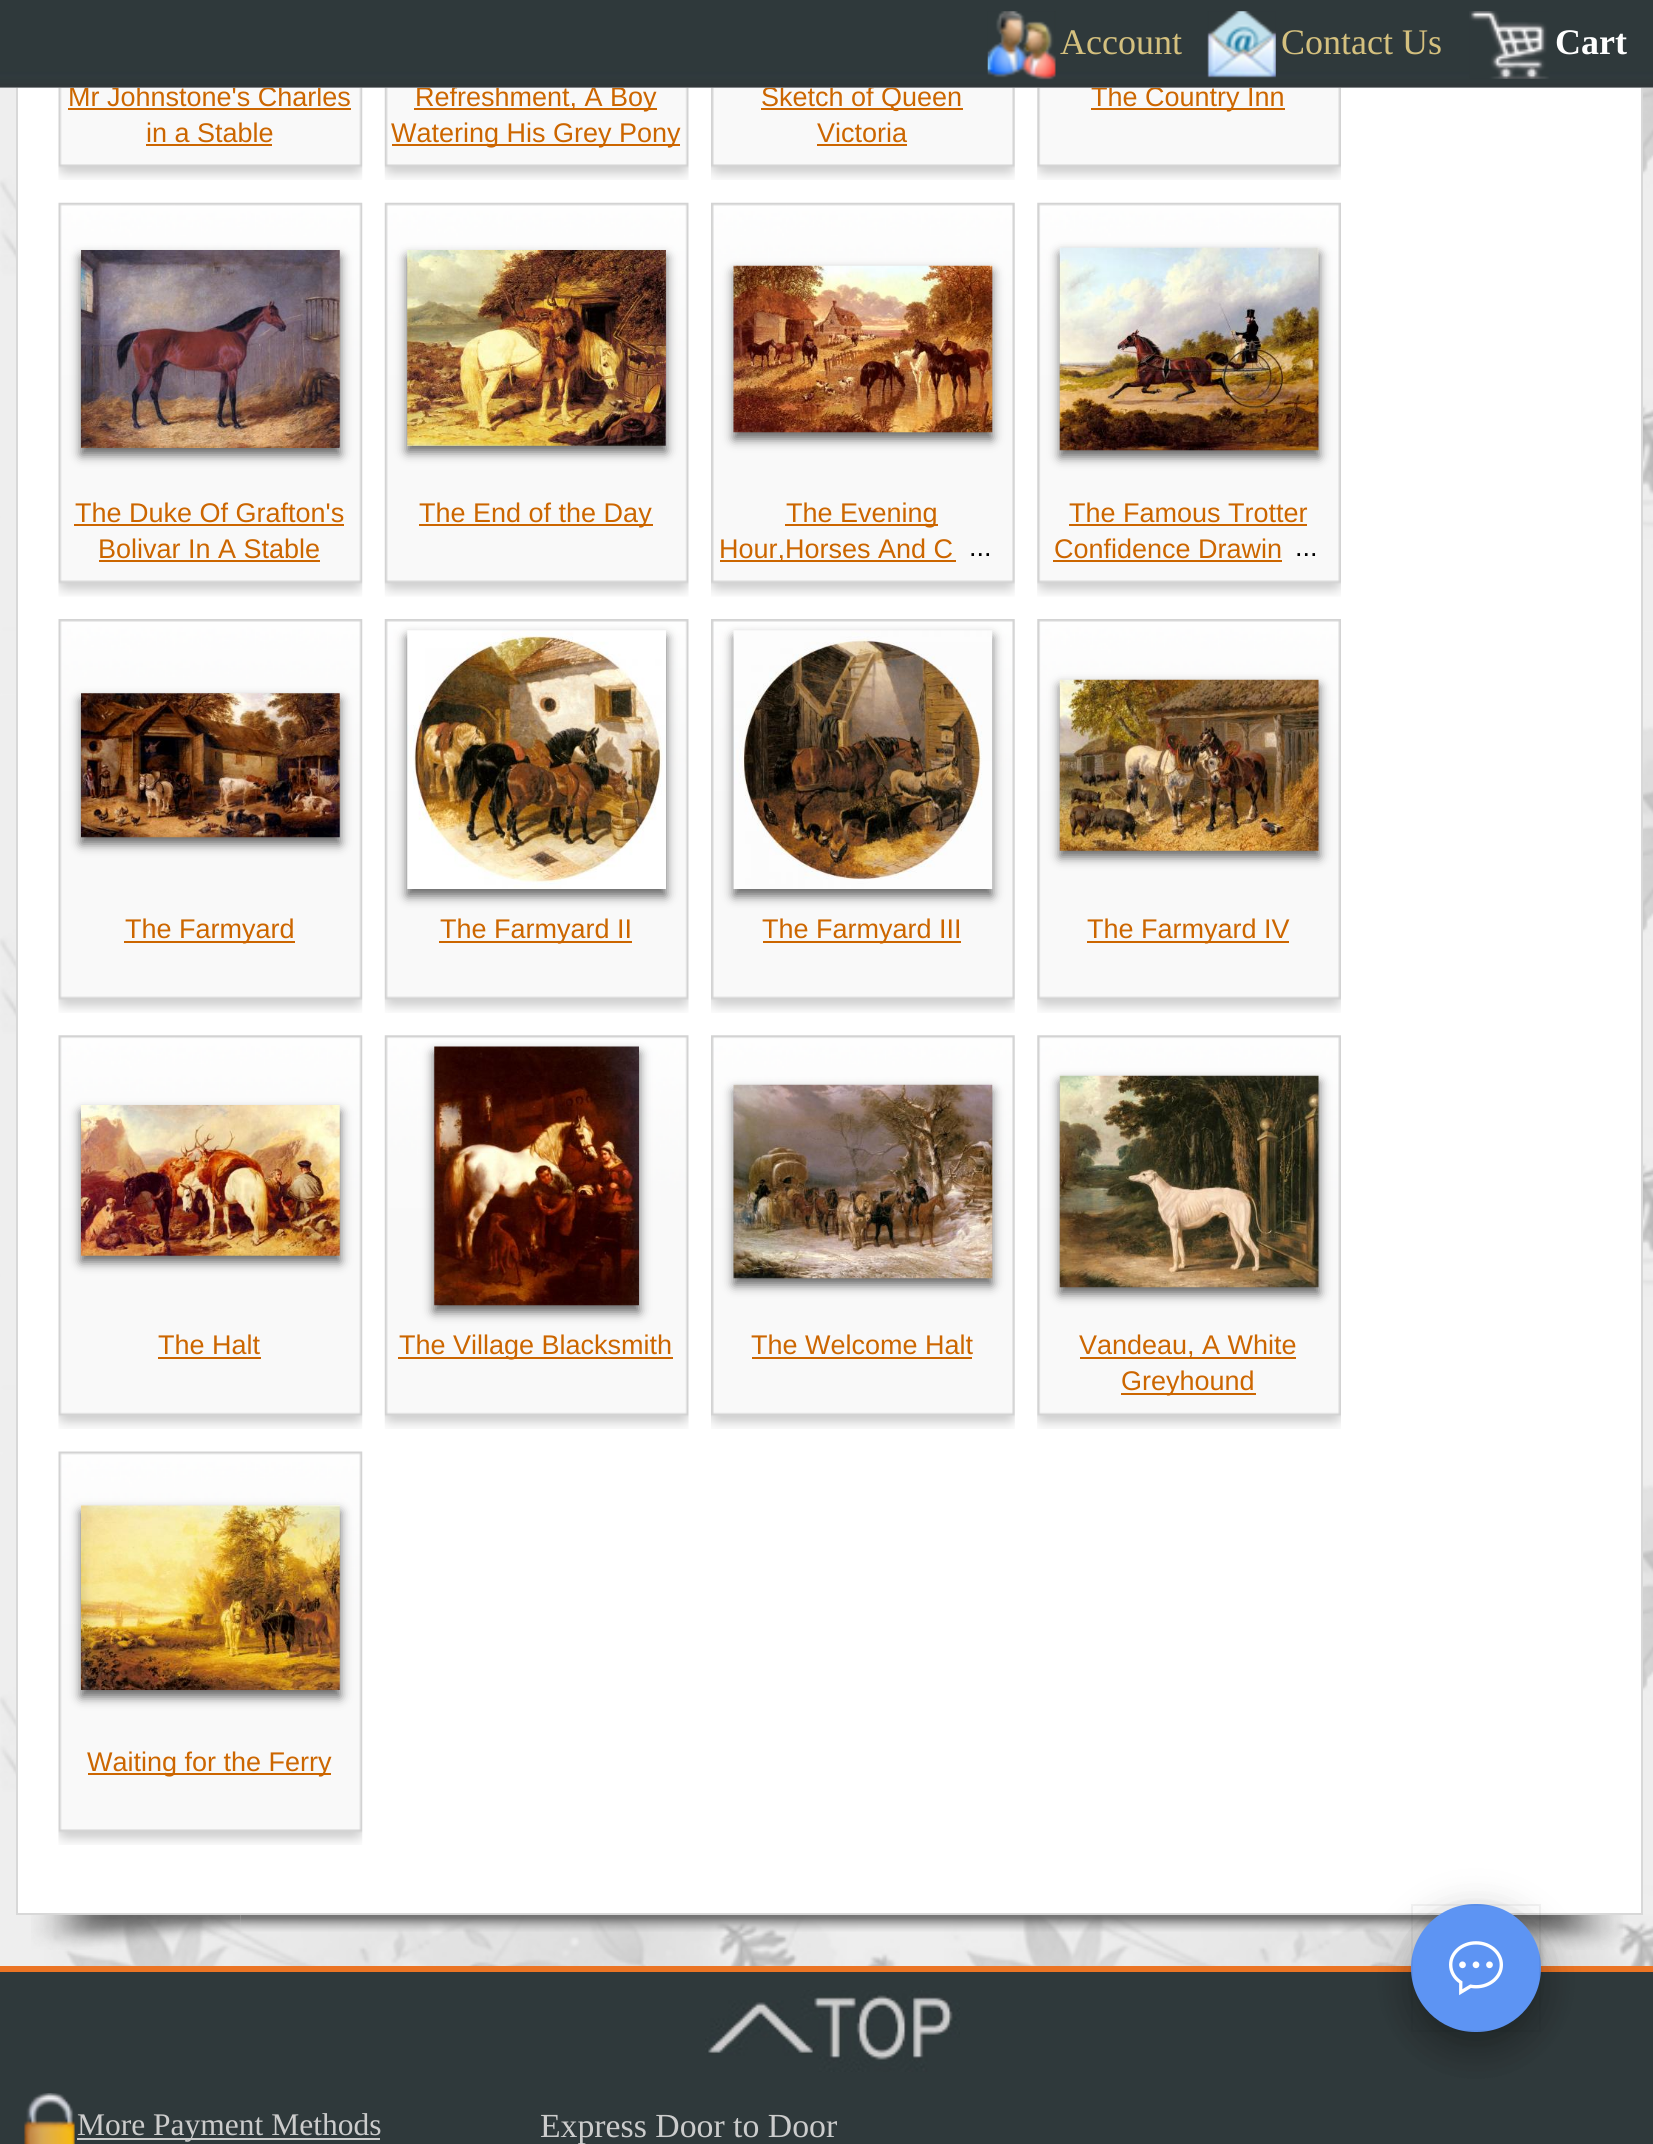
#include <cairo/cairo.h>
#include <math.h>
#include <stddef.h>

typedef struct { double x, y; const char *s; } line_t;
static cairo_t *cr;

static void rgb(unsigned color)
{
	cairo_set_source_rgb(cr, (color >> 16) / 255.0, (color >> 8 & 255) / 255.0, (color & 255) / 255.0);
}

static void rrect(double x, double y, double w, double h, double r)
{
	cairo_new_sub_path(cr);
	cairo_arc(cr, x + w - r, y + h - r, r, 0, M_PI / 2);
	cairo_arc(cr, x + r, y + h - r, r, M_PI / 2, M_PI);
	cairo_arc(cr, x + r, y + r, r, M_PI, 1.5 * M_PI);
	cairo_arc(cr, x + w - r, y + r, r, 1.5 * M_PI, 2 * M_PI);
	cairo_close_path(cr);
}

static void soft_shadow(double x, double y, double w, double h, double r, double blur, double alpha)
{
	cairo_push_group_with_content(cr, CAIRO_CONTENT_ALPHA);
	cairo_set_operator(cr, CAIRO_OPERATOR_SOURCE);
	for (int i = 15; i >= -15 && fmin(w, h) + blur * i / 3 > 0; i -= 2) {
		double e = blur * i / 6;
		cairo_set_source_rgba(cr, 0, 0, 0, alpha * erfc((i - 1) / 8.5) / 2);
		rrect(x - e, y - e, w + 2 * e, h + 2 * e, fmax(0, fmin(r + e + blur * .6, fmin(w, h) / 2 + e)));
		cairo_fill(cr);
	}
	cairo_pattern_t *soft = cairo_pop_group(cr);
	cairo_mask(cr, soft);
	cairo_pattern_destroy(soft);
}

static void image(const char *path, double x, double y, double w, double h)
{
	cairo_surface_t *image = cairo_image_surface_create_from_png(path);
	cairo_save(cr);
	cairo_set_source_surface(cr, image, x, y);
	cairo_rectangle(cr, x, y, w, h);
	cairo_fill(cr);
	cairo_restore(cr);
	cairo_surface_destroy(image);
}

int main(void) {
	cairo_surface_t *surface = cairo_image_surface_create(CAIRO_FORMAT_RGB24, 1653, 2144);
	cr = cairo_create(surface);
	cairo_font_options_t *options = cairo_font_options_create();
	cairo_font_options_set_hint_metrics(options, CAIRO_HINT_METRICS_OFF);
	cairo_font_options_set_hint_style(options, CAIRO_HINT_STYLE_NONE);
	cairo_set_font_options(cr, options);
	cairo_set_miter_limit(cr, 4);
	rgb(0xffffff);
	cairo_paint(cr);
	image("img/1.png", 0, 87, 1653, 1879);
	rgb(0xffffff);
	cairo_rectangle(cr, 18, 87, 1623, 1826);
	cairo_fill(cr);
	cairo_rectangle(cr, 17, -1, 1625, 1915);
	rgb(0xd8d8d8);
	cairo_stroke(cr);
	image("img/6.png", 58, 87, 305, 93);
	rgb(0xcc6600);
	cairo_rectangle(cr, 68, 108, 283, 2);
	cairo_fill(cr);
	cairo_rectangle(cr, 146, 144, 126, 2);
	cairo_fill(cr);
	image("img/7.png", 384, 87, 305, 93);
	cairo_rectangle(cr, 414, 108, 243, 2);
	cairo_fill(cr);
	cairo_rectangle(cr, 392, 144, 288, 2);
	cairo_fill(cr);
	image("img/8.png", 711, 87, 304, 93);
	cairo_rectangle(cr, 761, 108, 202, 2);
	cairo_fill(cr);
	cairo_rectangle(cr, 817, 144, 90, 2);
	cairo_fill(cr);
	image("img/9.png", 1037, 87, 304, 93);
	cairo_rectangle(cr, 1091, 108, 194, 2);
	cairo_fill(cr);
	image("img/10.png", 58, 202, 305, 395);
	rgb(0x666666);
	soft_shadow(81, 257, 259, 198, 0, 5.5, 1);
	image("img/11.png", 81, 250, 259, 198);
	rgb(0xcc6600);
	cairo_rectangle(cr, 74, 524, 270, 2);
	cairo_fill(cr);
	cairo_rectangle(cr, 99, 560, 221, 2);
	cairo_fill(cr);
	image("img/12.png", 384, 202, 305, 395);
	rgb(0x666666);
	soft_shadow(407, 257, 259, 195, 0, 5.5, 1);
	image("img/13.png", 407, 250, 259, 196);
	rgb(0xcc6600);
	cairo_rectangle(cr, 419, 524, 234, 2);
	cairo_fill(cr);
	image("img/14.png", 711, 202, 304, 395);
	rgb(0x666666);
	soft_shadow(734, 272, 258, 167, 0, 5.5, 1);
	image("img/15.png", 733, 265, 260, 168);
	rgb(0xcc6600);
	cairo_rectangle(cr, 785, 524, 153, 2);
	cairo_fill(cr);
	cairo_rectangle(cr, 720, 560, 236, 2);
	cairo_fill(cr);
	image("img/16.png", 1037, 202, 304, 395);
	rgb(0x666666);
	soft_shadow(1060, 254, 259, 203, 0, 5.5, 1);
	image("img/17.png", 1059, 247, 260, 204);
	rgb(0xcc6600);
	cairo_rectangle(cr, 1069, 524, 238, 2);
	cairo_fill(cr);
	cairo_rectangle(cr, 1053, 560, 229, 2);
	cairo_fill(cr);
	image("img/18.png", 58, 619, 305, 394);
	rgb(0x666666);
	soft_shadow(81, 700, 259, 144, 0, 5.5, 1);
	image("img/19.png", 81, 693, 259, 145);
	rgb(0xcc6600);
	cairo_rectangle(cr, 124, 941, 171, 2);
	cairo_fill(cr);
	image("img/20.png", 384, 619, 305, 394);
	rgb(0x666666);
	soft_shadow(407, 637, 259, 259, 0, 5.5, 1);
	image("img/21.png", 407, 630, 259, 259);
	rgb(0xcc6600);
	cairo_rectangle(cr, 439, 941, 193, 2);
	cairo_fill(cr);
	image("img/22.png", 711, 619, 304, 394);
	rgb(0x666666);
	soft_shadow(734, 637, 258, 259, 0, 5.5, 1);
	image("img/23.png", 733, 630, 260, 259);
	rgb(0xcc6600);
	cairo_rectangle(cr, 763, 941, 198, 2);
	cairo_fill(cr);
	image("img/24.png", 1037, 619, 304, 394);
	rgb(0x666666);
	soft_shadow(1060, 686, 259, 171, 0, 5.5, 1);
	image("img/25.png", 1059, 679, 260, 172);
	rgb(0xcc6600);
	cairo_rectangle(cr, 1087, 941, 202, 2);
	cairo_fill(cr);
	image("img/26.png", 58, 1035, 305, 394);
	rgb(0x666666);
	soft_shadow(81, 1112, 259, 150, 0, 5.5, 1);
	image("img/27.png", 81, 1105, 259, 151);
	rgb(0xcc6600);
	cairo_rectangle(cr, 158, 1357, 103, 2);
	cairo_fill(cr);
	image("img/28.png", 384, 1035, 305, 394);
	rgb(0x666666);
	soft_shadow(434, 1053, 205, 259, 0, 5.5, 1);
	image("img/29.png", 434, 1046, 205, 260);
	rgb(0xcc6600);
	cairo_rectangle(cr, 398, 1357, 275, 2);
	cairo_fill(cr);
	image("img/30.png", 711, 1035, 304, 394);
	rgb(0x666666);
	soft_shadow(734, 1091, 258, 194, 0, 5.5, 1);
	image("img/31.png", 733, 1084, 260, 195);
	rgb(0xcc6600);
	cairo_rectangle(cr, 752, 1357, 220, 2);
	cairo_fill(cr);
	image("img/32.png", 1037, 1035, 304, 394);
	rgb(0x666666);
	soft_shadow(1060, 1082, 259, 212, 0, 5.5, 1);
	image("img/33.png", 1059, 1075, 260, 213);
	rgb(0xcc6600);
	cairo_rectangle(cr, 1080, 1357, 216, 2);
	cairo_fill(cr);
	cairo_rectangle(cr, 1121, 1393, 135, 2);
	cairo_fill(cr);
	image("img/34.png", 58, 1451, 305, 394);
	rgb(0x666666);
	soft_shadow(81, 1512, 259, 185, 0, 5.5, 1);
	image("img/35.png", 81, 1505, 259, 185);
	rgb(0xcc6600);
	cairo_rectangle(cr, 88, 1773, 243, 2);
	cairo_fill(cr);
	image("img/36.png", 31, 1915, 210, 35);
	image("img/37.png", 240, 1915, 1173, 17);
	image("img/38.png", 1413, 1915, 210, 35);
	rgb(0xeb7424);
	cairo_rectangle(cr, 0, 1966, 1653, 6);
	cairo_fill(cr);
	rgb(0x2f393b);
	cairo_rectangle(cr, 0, 1972, 1653, 172);
	cairo_fill(cr);
	rgb(0x000000);
	soft_shadow(1411, 1917, 130, 128, 64, 22.5, 0.19);
	soft_shadow(1411, 1922, 130, 128, 64, 19, 0.2);
	rgb(0x5d94f3);
	rrect(1411, 1904, 130, 128, 64);
	cairo_fill(cr);
	cairo_rectangle(cr, 1412, 1905, 128, 126);
	cairo_set_source_rgba(cr, 0, 0, 0, 0.05);
	cairo_stroke(cr);
	image("img/39.png", 1449, 1941, 54, 55);
	image("img/40.png", 705, 1990, 255, 82);
	image("img/41.png", 24, 2093, 51, 51);
	rgb(0xcccccc);
	cairo_rectangle(cr, 77, 2138, 303, 2);
	cairo_fill(cr);
	cairo_select_font_face(cr, "Liberation Sans", CAIRO_FONT_SLANT_NORMAL, CAIRO_FONT_WEIGHT_NORMAL);
	cairo_set_font_size(cr, 27);
	rgb(0xcc6600);
	{
		static const line_t items[] = {
			{68, 106, "Mr Johnstone's Charles"},
			{146, 142, "in a Stable"},
			{415, 106, "Refreshment, A Boy"},
			{391, 142, "Watering His Grey Pony"},
			{761, 106, "Sketch of Queen"},
			{817, 142, "Victoria"},
			{1091, 106, "The Country Inn"},
		};
		for (size_t i = 0; i < sizeof items / sizeof *items; i++) {
			cairo_move_to(cr, items[i].x, items[i].y);
			cairo_show_text(cr, items[i].s);
		}
	}
	image("img/2.png", 0, 0, 1653, 88);
	cairo_select_font_face(cr, "Liberation Serif", CAIRO_FONT_SLANT_NORMAL, CAIRO_FONT_WEIGHT_BOLD);
	cairo_set_font_size(cr, 36);
	rgb(0xffffff);
	cairo_move_to(cr, 1555, 54);
	cairo_show_text(cr, "Cart");
	image("img/5.png", 1469, 11, 80, 68);
	cairo_select_font_face(cr, "Liberation Serif", CAIRO_FONT_SLANT_NORMAL, CAIRO_FONT_WEIGHT_NORMAL);
	rgb(0xd4c07e);
	cairo_move_to(cr, 1281, 54);
	cairo_show_text(cr, "Contact Us");
	image("img/4.png", 1207, 11, 69, 67);
	cairo_move_to(cr, 1060, 54);
	cairo_show_text(cr, "Account");
	image("img/3.png", 987, 11, 69, 69);
	cairo_set_source_rgba(cr, 0.478, 0.494, 0.502, 0.75);
	cairo_rectangle(cr, 0, 87, 1653, 1);
	cairo_fill(cr);
	cairo_select_font_face(cr, "Liberation Sans", CAIRO_FONT_SLANT_NORMAL, CAIRO_FONT_WEIGHT_NORMAL);
	cairo_set_font_size(cr, 27);
	rgb(0xcc6600);
	{
		static const line_t items[] = {
			{75, 522, "The Duke Of Grafton's"},
			{98, 558, "Bolivar In A Stable"},
			{419, 522, "The End of the Day"},
			{786, 522, "The Evening"},
			{719, 558, "Hour,Horses And C"},
		};
		for (size_t i = 0; i < sizeof items / sizeof *items; i++) {
			cairo_move_to(cr, items[i].x, items[i].y);
			cairo_show_text(cr, items[i].s);
		}
	}
	rgb(0x000000);
	cairo_move_to(cr, 969, 556);
	cairo_show_text(cr, "...");
	rgb(0xcc6600);
	cairo_move_to(cr, 1069, 522);
	cairo_show_text(cr, "The Famous Trotter");
	cairo_move_to(cr, 1054, 558);
	cairo_show_text(cr, "Confidence Drawin");
	rgb(0x000000);
	cairo_move_to(cr, 1295, 556);
	cairo_show_text(cr, "...");
	rgb(0xcc6600);
	{
		static const line_t items[] = {
			{125, 938, "The Farmyard"},
			{440, 938, "The Farmyard II"},
			{762, 938, "The Farmyard III"},
			{1087, 938, "The Farmyard IV"},
			{158, 1354, "The Halt"},
			{399, 1354, "The Village Blacksmith"},
			{751, 1354, "The Welcome Halt"},
			{1079, 1354, "Vandeau, A White"},
			{1121, 1390, "Greyhound"},
			{87, 1771, "Waiting for the Ferry"},
		};
		for (size_t i = 0; i < sizeof items / sizeof *items; i++) {
			cairo_move_to(cr, items[i].x, items[i].y);
			cairo_show_text(cr, items[i].s);
		}
	}
	cairo_select_font_face(cr, "Liberation Serif", CAIRO_FONT_SLANT_NORMAL, CAIRO_FONT_WEIGHT_NORMAL);
	cairo_set_font_size(cr, 31.5);
	rgb(0xcccccc);
	cairo_move_to(cr, 77, 2135);
	cairo_show_text(cr, "More Payment Methods");
	cairo_set_font_size(cr, 33.75);
	cairo_move_to(cr, 540, 2137);
	cairo_show_text(cr, "Express Door to Door");
	cairo_surface_write_to_png(surface, "page.png");
	cairo_font_options_destroy(options);
	cairo_destroy(cr);
	cairo_surface_destroy(surface);
	return 0;
}
